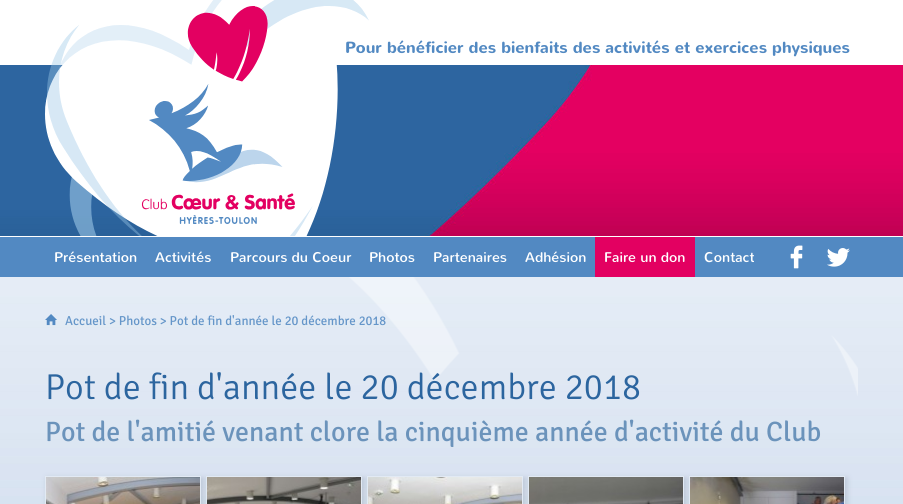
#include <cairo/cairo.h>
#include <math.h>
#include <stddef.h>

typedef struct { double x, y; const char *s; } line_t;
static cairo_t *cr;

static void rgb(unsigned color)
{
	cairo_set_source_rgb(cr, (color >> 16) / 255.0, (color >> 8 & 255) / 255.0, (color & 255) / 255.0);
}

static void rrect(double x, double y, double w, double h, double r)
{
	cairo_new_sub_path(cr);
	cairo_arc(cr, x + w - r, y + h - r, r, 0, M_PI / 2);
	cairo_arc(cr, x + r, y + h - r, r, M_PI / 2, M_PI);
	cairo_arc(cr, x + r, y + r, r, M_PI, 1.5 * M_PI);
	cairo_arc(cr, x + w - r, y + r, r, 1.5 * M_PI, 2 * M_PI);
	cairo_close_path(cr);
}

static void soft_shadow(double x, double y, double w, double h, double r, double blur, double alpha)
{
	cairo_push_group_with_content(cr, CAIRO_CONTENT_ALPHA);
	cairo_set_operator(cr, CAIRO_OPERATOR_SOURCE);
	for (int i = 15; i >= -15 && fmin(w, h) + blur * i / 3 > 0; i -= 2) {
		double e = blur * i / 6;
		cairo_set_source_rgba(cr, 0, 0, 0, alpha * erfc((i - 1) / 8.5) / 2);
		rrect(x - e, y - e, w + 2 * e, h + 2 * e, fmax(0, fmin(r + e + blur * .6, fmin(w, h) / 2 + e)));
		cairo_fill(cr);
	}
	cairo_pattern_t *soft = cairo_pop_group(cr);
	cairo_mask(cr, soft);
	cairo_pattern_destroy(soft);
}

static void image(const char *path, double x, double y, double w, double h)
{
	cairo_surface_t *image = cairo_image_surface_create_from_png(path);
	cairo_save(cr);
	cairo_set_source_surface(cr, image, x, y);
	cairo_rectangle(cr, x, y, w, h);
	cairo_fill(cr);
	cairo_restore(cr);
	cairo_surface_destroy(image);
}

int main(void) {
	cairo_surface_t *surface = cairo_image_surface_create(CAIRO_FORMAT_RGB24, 903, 504);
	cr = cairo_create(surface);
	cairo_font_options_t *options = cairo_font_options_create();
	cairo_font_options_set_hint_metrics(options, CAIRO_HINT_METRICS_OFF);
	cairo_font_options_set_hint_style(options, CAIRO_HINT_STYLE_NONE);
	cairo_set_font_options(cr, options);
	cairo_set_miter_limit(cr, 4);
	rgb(0xffffff);
	cairo_paint(cr);
	image("img/1.png", 0, 277, 903, 227);
	image("img/2.png", 0, 65, 903, 171);
	rgb(0x5289c2);
	cairo_rectangle(cr, 0, 237, 903, 40);
	cairo_fill(cr);
	image("img/4.png", 790, 245, 13, 24);
	image("img/5.png", 827, 248, 23, 19);
	rgb(0xe30061);
	cairo_rectangle(cr, 595, 237, 100, 40);
	cairo_fill(cr);
	image("img/6.png", 349, 277, 509, 119);
	image("img/7.png", 45, 314, 12, 12);
	rgb(0x6d7987);
	soft_shadow(47, 478, 156, 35, 0, 3, 0.29);
	cairo_rectangle(cr, 45.5, 476.5, 155, 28);
	rgb(0xe2eaf4);
	cairo_set_line_width(cr, 1);
	cairo_stroke(cr);
	image("img/8.png", 46, 477, 154, 27);
	rgb(0x6d7987);
	soft_shadow(208, 478, 156, 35, 0, 3, 0.29);
	cairo_rectangle(cr, 206.5, 476.5, 155, 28);
	rgb(0xe2eaf4);
	cairo_stroke(cr);
	image("img/9.png", 207, 477, 154, 27);
	rgb(0x6d7987);
	soft_shadow(369, 478, 156, 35, 0, 3, 0.29);
	cairo_rectangle(cr, 367.5, 476.5, 155, 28);
	rgb(0xe2eaf4);
	cairo_stroke(cr);
	image("img/10.png", 368, 477, 154, 27);
	rgb(0x6d7987);
	soft_shadow(530, 478, 156, 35, 0, 3, 0.29);
	cairo_rectangle(cr, 528.5, 476.5, 155, 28);
	rgb(0xe2eaf4);
	cairo_stroke(cr);
	image("img/11.png", 529, 477, 154, 27);
	rgb(0x6d7987);
	soft_shadow(691, 478, 156, 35, 0, 3, 0.29);
	cairo_rectangle(cr, 689.5, 476.5, 155, 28);
	rgb(0xe2eaf4);
	cairo_stroke(cr);
	image("img/12.png", 690, 477, 154, 27);
	cairo_select_font_face(cr, "Nunito", CAIRO_FONT_SLANT_NORMAL, CAIRO_FONT_WEIGHT_BOLD);
	cairo_set_font_size(cr, 16);
	rgb(0x5289c2);
	cairo_move_to(cr, 345, 53);
	cairo_show_text(cr, "Pour bénéficier des bienfaits des activités et exercices physiques");
	image("img/3.png", 45, 0, 324, 236);
	cairo_select_font_face(cr, "Nunito", CAIRO_FONT_SLANT_NORMAL, CAIRO_FONT_WEIGHT_NORMAL);
	cairo_set_font_size(cr, 14);
	rgb(0xffffff);
	{
		static const line_t items[] = {
			{54, 262, "Présentation"},
			{155, 262, "Activités"},
			{230, 262, "Parcours du Coeur"},
			{369, 262, "Photos"},
			{433, 262, "Partenaires"},
			{525, 262, "Adhésion"},
			{604, 262, "Faire un don"},
			{704, 262, "Contact"},
		};
		for (size_t i = 0; i < sizeof items / sizeof *items; i++) {
			cairo_move_to(cr, items[i].x, items[i].y);
			cairo_show_text(cr, items[i].s);
		}
	}
	cairo_select_font_face(cr, "Signika", CAIRO_FONT_SLANT_NORMAL, CAIRO_FONT_WEIGHT_NORMAL);
	cairo_set_font_size(cr, 13);
	rgb(0x6596c9);
	cairo_move_to(cr, 65, 325);
	cairo_show_text(cr, "Accueil > Photos > Pot de fin d'année le 20 décembre 2018");
	cairo_select_font_face(cr, "Signika Light", CAIRO_FONT_SLANT_NORMAL, CAIRO_FONT_WEIGHT_NORMAL);
	cairo_set_font_size(cr, 36);
	rgb(0x2c659f);
	cairo_move_to(cr, 45, 399);
	cairo_show_text(cr, "Pot de fin d'année le 20 décembre 2018");
	cairo_select_font_face(cr, "Signika", CAIRO_FONT_SLANT_NORMAL, CAIRO_FONT_WEIGHT_NORMAL);
	cairo_set_font_size(cr, 28);
	rgb(0x6b93bb);
	cairo_move_to(cr, 45, 441);
	cairo_show_text(cr, "Pot de l'amitié venant clore la cinquième année d'activité du Club");
	cairo_surface_write_to_png(surface, "page.png");
	cairo_font_options_destroy(options);
	cairo_destroy(cr);
	cairo_surface_destroy(surface);
	return 0;
}
